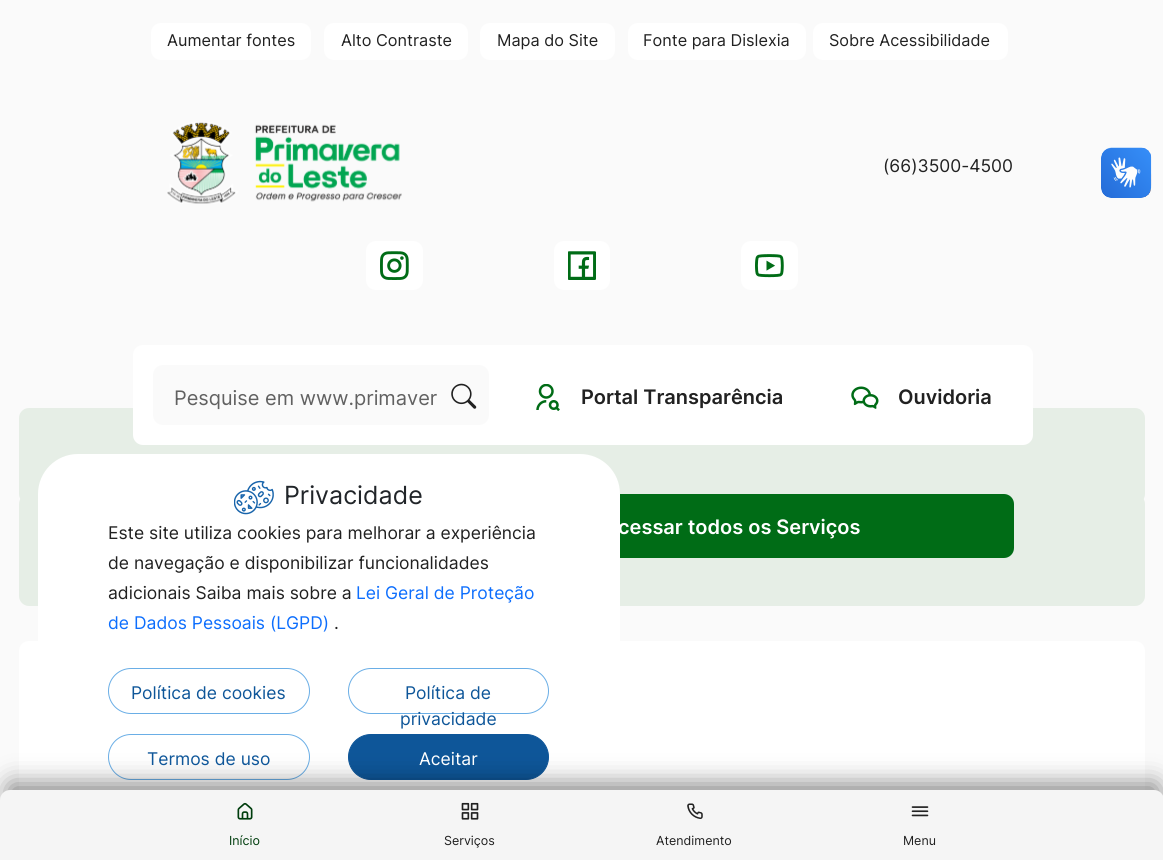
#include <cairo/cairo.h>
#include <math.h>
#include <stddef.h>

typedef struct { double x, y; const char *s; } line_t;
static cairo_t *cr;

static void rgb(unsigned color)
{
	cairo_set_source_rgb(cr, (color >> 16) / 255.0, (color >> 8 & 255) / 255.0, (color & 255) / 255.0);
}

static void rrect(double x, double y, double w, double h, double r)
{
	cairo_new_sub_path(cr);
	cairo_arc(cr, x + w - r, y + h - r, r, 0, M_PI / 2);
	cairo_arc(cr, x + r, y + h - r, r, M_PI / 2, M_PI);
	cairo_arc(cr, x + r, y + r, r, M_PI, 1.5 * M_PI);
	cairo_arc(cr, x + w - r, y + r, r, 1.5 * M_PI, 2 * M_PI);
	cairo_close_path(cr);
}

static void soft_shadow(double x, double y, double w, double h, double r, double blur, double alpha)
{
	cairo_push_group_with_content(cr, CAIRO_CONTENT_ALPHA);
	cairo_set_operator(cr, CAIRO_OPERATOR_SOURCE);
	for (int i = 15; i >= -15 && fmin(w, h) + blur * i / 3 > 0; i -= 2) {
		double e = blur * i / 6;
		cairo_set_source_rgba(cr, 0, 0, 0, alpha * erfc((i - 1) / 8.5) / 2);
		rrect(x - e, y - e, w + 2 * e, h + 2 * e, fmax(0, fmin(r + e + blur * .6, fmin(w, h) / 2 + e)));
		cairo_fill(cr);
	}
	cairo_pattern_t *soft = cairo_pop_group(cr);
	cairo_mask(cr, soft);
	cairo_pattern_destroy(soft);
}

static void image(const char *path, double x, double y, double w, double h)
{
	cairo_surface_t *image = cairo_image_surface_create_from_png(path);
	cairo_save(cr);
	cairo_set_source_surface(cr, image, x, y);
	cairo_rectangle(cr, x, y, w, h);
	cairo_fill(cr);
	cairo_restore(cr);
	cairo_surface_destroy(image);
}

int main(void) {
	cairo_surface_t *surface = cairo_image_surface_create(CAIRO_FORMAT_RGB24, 1163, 860);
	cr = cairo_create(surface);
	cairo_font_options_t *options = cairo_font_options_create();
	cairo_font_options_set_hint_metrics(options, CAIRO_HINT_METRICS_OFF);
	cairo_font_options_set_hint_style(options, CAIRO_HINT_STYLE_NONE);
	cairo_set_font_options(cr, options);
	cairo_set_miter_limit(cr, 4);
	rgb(0xfafafa);
	cairo_paint(cr);
	rgb(0xffffff);
	rrect(151, 23, 160, 37, 10);
	cairo_fill(cr);
	rrect(324, 23, 144, 37, 10);
	cairo_fill(cr);
	rrect(480, 23, 135, 37, 10);
	cairo_fill(cr);
	rrect(628, 23, 178, 37, 10);
	cairo_fill(cr);
	rrect(813, 23, 195, 37, 10);
	cairo_fill(cr);
	image("img/1.png", 167, 122, 235, 82);
	rrect(366, 241, 57, 49, 10);
	cairo_fill(cr);
	image("img/2.png", 380, 251, 29, 29);
	rrect(554, 241, 56, 49, 10);
	cairo_fill(cr);
	image("img/3.png", 568, 251, 28, 29);
	rrect(741, 241, 57, 49, 10);
	cairo_fill(cr);
	image("img/4.png", 755, 254, 29, 24);
	rrect(19, 641, 1126, 218, 10);
	cairo_fill(cr);
	rgb(0xe6eee6);
	rrect(19, 408, 1126, 96, 10);
	cairo_fill(cr);
	rrect(19, 494, 1126, 112, 10);
	cairo_fill(cr);
	rgb(0x006c16);
	rrect(451, 494, 563, 64, 10);
	cairo_fill(cr);
	rgb(0xffffff);
	rrect(38, 454, 582, 369, 40);
	cairo_fill(cr);
	rrect(108.5, 734.5, 201, 45, 22.5);
	rgb(0x6aaee6);
	cairo_set_line_width(cr, 1);
	cairo_stroke(cr);
	rgb(0x0e5699);
	rrect(348.5, 734.5, 200, 45, 22.5);
	cairo_fill_preserve(cr);
	cairo_stroke(cr);
	rgb(0x000000);
	soft_shadow(9, 784, 1149, 55, 2.5, 12.5, 0.49);
	rgb(0xf5f5f5);
	cairo_new_path(cr);
	cairo_move_to(cr, 10, 790);
	cairo_line_to(cr, 1154, 790);
	cairo_curve_to(cr, 1159.5, 790, 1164, 794.5, 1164, 800);
	cairo_line_to(cr, 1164, 860);
	cairo_line_to(cr, 0, 860);
	cairo_line_to(cr, 0, 800);
	cairo_curve_to(cr, 0, 794.5, 4.5, 790, 10, 790);
	cairo_close_path(cr);
	cairo_fill(cr);
	image("img/5.png", 237, 802, 16, 18);
	image("img/6.png", 461, 802, 18, 18);
	image("img/7.png", 687, 803, 16, 16);
	image("img/8.png", 911, 806, 18, 11);
	image("img/9.png", 1101, 147, 51, 51);
	image("img/10.png", 1101, 148, 50, 50);
	rgb(0xffffff);
	rrect(133, 345, 900, 100, 10);
	cairo_fill(cr);
	rgb(0xfafafa);
	rrect(154.5, 366.5, 333, 57, 8.5);
	cairo_fill_preserve(cr);
	cairo_set_line_width(cr, 3);
	cairo_stroke(cr);
	image("img/11.png", 451, 383, 26, 26);
	image("img/12.png", 536, 384, 24, 27);
	image("img/13.png", 851, 386, 28, 23);
	image("img/14.png", 234, 480, 40, 35);
	rrect(108.5, 668.5, 201, 45, 22.5);
	rgb(0x6aaee6);
	cairo_set_line_width(cr, 1);
	cairo_stroke(cr);
	rrect(348.5, 668.5, 200, 45, 22.5);
	cairo_stroke(cr);
	cairo_select_font_face(cr, "Inter", CAIRO_FONT_SLANT_NORMAL, CAIRO_FONT_WEIGHT_NORMAL);
	cairo_set_font_size(cr, 16.25);
	rgb(0x212121);
	{
		static const line_t items[] = {
			{167, 46, "Aumentar fontes"},
			{341, 46, "Alto Contraste"},
			{497, 46, "Mapa do Site"},
			{643, 46, "Fonte para Dislexia"},
			{829, 46, "Sobre Acessibilidade"},
		};
		for (size_t i = 0; i < sizeof items / sizeof *items; i++) {
			cairo_move_to(cr, items[i].x, items[i].y);
			cairo_show_text(cr, items[i].s);
		}
	}
	cairo_set_font_size(cr, 17.5);
	cairo_move_to(cr, 883, 172);
	cairo_show_text(cr, "(66)3500-4500");
	cairo_set_font_size(cr, 12.5);
	rgb(0x003d0d);
	cairo_move_to(cr, 229, 845);
	cairo_show_text(cr, "Início");
	rgb(0x212121);
	{
		static const line_t items[] = {
			{444, 845, "Serviços"},
			{656, 845, "Atendimento"},
			{903, 845, "Menu"},
		};
		for (size_t i = 0; i < sizeof items / sizeof *items; i++) {
			cairo_move_to(cr, items[i].x, items[i].y);
			cairo_show_text(cr, items[i].s);
		}
	}
	cairo_set_font_size(cr, 20);
	rgb(0x616161);
	cairo_move_to(cr, 174, 405);
	cairo_show_text(cr, "Pesquise em www.primaver");
	cairo_select_font_face(cr, "Inter SemiBold", CAIRO_FONT_SLANT_NORMAL, CAIRO_FONT_WEIGHT_NORMAL);
	rgb(0x212121);
	cairo_move_to(cr, 581, 404);
	cairo_show_text(cr, "Portal Transparência");
	cairo_move_to(cr, 898, 404);
	cairo_show_text(cr, "Ouvidoria");
	rgb(0xffffff);
	cairo_move_to(cr, 618, 534);
	cairo_show_text(cr, "cessar todos os Serviços");
	cairo_select_font_face(cr, "Inter", CAIRO_FONT_SLANT_NORMAL, CAIRO_FONT_WEIGHT_NORMAL);
	cairo_set_font_size(cr, 25);
	rgb(0x212529);
	cairo_move_to(cr, 284, 504);
	cairo_show_text(cr, "Privacidade");
	cairo_set_font_size(cr, 17.5);
	rgb(0x212121);
	{
		static const line_t items[] = {
			{108, 539, "Este site utiliza cookies para melhorar a experiência"},
			{108, 569, "de navegação e disponibilizar funcionalidades"},
			{108, 599, "adicionais Saiba mais sobre a"},
		};
		for (size_t i = 0; i < sizeof items / sizeof *items; i++) {
			cairo_move_to(cr, items[i].x, items[i].y);
			cairo_show_text(cr, items[i].s);
		}
	}
	rgb(0x0d6efd);
	cairo_move_to(cr, 356, 599);
	cairo_show_text(cr, "Lei Geral de Proteção");
	cairo_move_to(cr, 108, 629);
	cairo_show_text(cr, "de Dados Pessoais (LGPD)");
	rgb(0x212121);
	cairo_move_to(cr, 334, 629);
	cairo_show_text(cr, ".");
	rgb(0x0e5699);
	{
		static const line_t items[] = {
			{131, 699, "Política de cookies"},
			{405, 699, "Política de"},
			{400, 725, "privacidade"},
			{147, 765, "Termos de uso"},
		};
		for (size_t i = 0; i < sizeof items / sizeof *items; i++) {
			cairo_move_to(cr, items[i].x, items[i].y);
			cairo_show_text(cr, items[i].s);
		}
	}
	rgb(0xffffff);
	cairo_move_to(cr, 419, 765);
	cairo_show_text(cr, "Aceitar");
	cairo_surface_write_to_png(surface, "page.png");
	cairo_font_options_destroy(options);
	cairo_destroy(cr);
	cairo_surface_destroy(surface);
	return 0;
}
